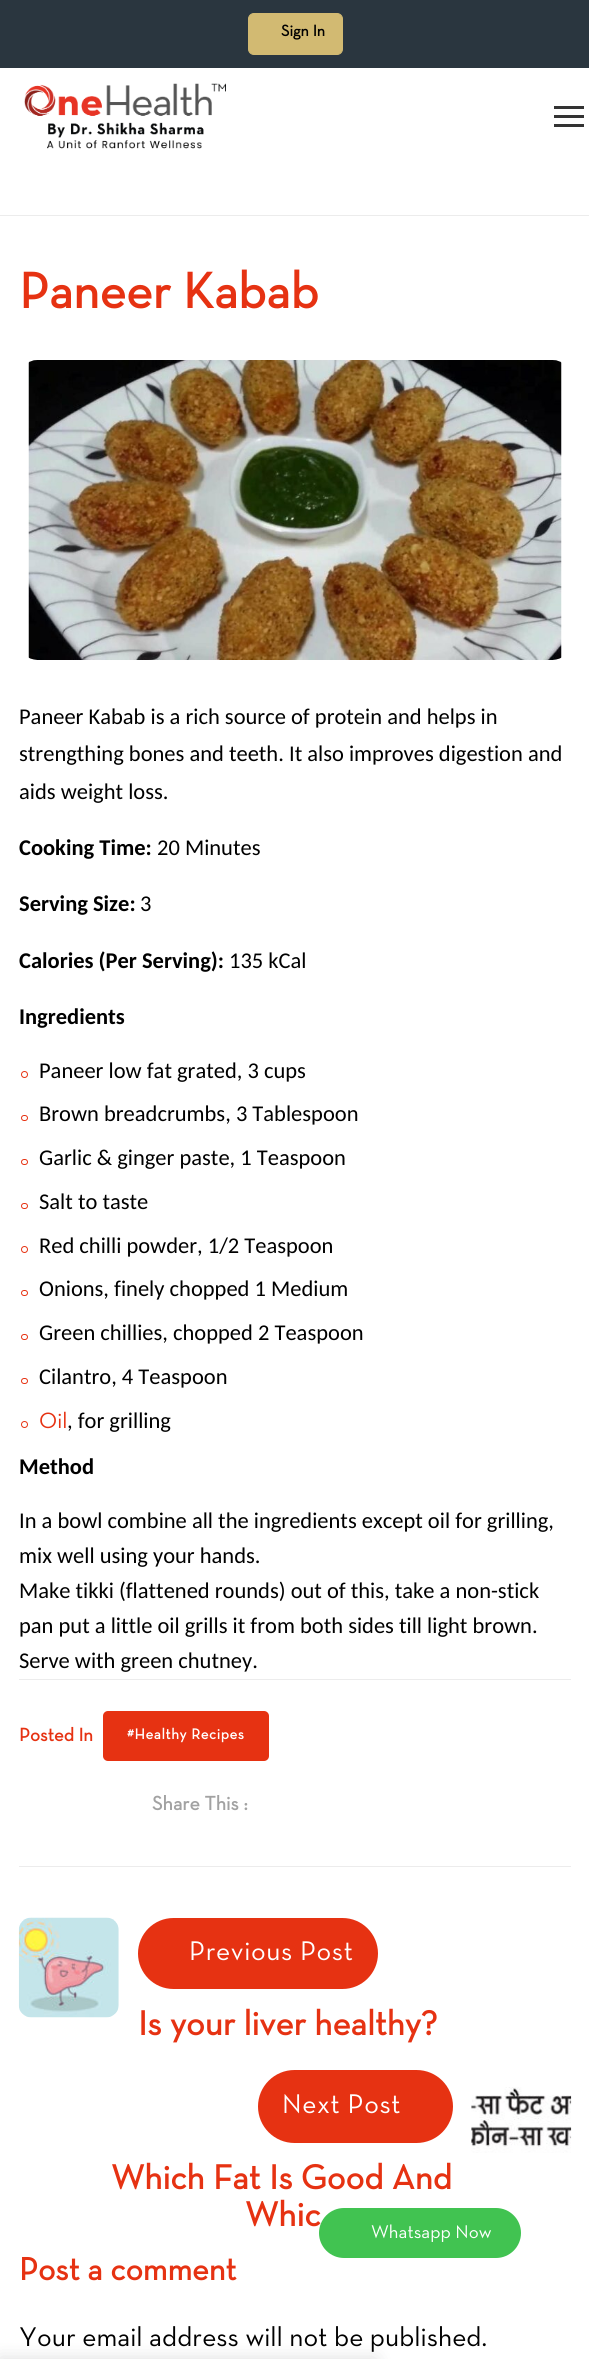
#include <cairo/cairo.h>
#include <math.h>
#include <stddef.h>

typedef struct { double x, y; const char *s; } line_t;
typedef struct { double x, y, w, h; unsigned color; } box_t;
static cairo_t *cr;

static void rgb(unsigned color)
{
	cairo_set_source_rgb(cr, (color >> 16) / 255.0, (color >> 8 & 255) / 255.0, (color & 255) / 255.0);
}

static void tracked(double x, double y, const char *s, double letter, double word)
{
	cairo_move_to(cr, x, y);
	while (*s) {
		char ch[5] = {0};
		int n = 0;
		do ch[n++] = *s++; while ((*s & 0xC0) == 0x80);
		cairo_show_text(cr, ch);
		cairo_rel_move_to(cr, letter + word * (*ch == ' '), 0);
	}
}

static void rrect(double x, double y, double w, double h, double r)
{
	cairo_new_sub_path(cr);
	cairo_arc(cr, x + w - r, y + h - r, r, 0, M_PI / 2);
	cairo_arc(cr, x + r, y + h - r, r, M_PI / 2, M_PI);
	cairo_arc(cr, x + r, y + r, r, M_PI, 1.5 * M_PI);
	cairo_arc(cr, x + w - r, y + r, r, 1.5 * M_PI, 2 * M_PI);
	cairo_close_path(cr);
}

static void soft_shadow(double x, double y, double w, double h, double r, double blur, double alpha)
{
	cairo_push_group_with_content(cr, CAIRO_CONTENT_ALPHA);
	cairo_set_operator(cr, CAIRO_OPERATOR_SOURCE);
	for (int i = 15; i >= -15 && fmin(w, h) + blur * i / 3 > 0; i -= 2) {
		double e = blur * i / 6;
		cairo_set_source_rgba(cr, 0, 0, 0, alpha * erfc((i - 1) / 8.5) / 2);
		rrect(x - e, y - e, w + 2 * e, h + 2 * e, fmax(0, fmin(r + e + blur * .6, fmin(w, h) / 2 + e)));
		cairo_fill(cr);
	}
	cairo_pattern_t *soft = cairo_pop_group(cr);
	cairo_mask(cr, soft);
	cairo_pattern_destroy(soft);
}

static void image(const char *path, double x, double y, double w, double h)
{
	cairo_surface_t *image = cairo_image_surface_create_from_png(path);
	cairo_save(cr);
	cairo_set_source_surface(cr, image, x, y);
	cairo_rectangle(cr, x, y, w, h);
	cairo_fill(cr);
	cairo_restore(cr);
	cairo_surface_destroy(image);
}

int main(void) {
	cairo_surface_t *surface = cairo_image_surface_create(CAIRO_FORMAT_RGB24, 589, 2359);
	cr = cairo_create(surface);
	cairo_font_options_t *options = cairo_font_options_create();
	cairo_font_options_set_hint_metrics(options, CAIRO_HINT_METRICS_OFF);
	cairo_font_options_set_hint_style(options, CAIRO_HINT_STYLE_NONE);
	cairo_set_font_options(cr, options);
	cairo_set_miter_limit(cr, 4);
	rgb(0xffffff);
	cairo_paint(cr);
	rgb(0x2a363f);
	cairo_rectangle(cr, 0, 0, 589, 68);
	cairo_fill(cr);
	rgb(0xd2ba72);
	rrect(248.5, 13.5, 94, 41, 5.5);
	cairo_fill_preserve(cr);
	cairo_set_line_width(cr, 1);
	cairo_stroke(cr);
	image("img/1.png", 24, 83, 202, 66);
	{
		static const box_t items[] = {
			{554, 106, 30, 3, 0x333333},
			{554, 115, 30, 3, 0x333333},
			{554, 124, 30, 3, 0x333333},
			{0, 215, 589, 1, 0xececec},
		};
		for (size_t i = 0; i < sizeof items / sizeof *items; i++) {
			rgb(items[i].color);
			cairo_rectangle(cr, items[i].x, items[i].y, items[i].w, items[i].h);
			cairo_fill(cr);
		}
	}
	image("img/2.png", 28, 360, 534, 300);
	cairo_arc(cr, 24.5, 1074.5, 3, 0, 2 * M_PI);
	rgb(0xe63212);
	cairo_stroke(cr);
	rrect(21.5, 1115.5, 6, 5, 2.5);
	cairo_stroke(cr);
	rrect(21.5, 1159.5, 6, 5, 2.5);
	cairo_stroke(cr);
	rrect(21.5, 1203.5, 6, 5, 2.5);
	cairo_stroke(cr);
	cairo_arc(cr, 24.5, 1249.5, 3, 0, 2 * M_PI);
	cairo_stroke(cr);
	rrect(21.5, 1290.5, 6, 5, 2.5);
	cairo_stroke(cr);
	rrect(21.5, 1334.5, 6, 5, 2.5);
	cairo_stroke(cr);
	rrect(21.5, 1378.5, 6, 5, 2.5);
	cairo_stroke(cr);
	cairo_arc(cr, 24.5, 1424.5, 3, 0, 2 * M_PI);
	cairo_stroke(cr);
	rgb(0xececec);
	cairo_rectangle(cr, 19, 1679, 552, 1);
	cairo_fill(cr);
	rgb(0xe63212);
	rrect(103, 1711, 166, 50, 5);
	cairo_fill(cr);
	rgb(0xececec);
	cairo_rectangle(cr, 19, 1866, 552, 1);
	cairo_fill(cr);
	image("img/3.png", 18, 1917, 101, 101);
	rgb(0xe63212);
	rrect(138, 1918, 240, 71, 35.5);
	cairo_fill(cr);
	rrect(258, 2070, 195, 73, 36.5);
	cairo_fill(cr);
	image("img/4.png", 471, 2087, 101, 66);
	rgb(0x000000);
	soft_shadow(0, 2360, 375, 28, 0, 9.5, 0.15);
	cairo_select_font_face(cr, "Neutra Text", CAIRO_FONT_SLANT_NORMAL, CAIRO_FONT_WEIGHT_BOLD);
	cairo_set_font_size(cr, 16);
	rgb(0x000000);
	cairo_move_to(cr, 281, 36);
	cairo_show_text(cr, "Sign In");
	cairo_set_font_size(cr, 51.25);
	rgb(0xe63212);
	cairo_move_to(cr, 19, 308);
	cairo_show_text(cr, "Paneer Kabab");
	cairo_select_font_face(cr, "Carlito", CAIRO_FONT_SLANT_NORMAL, CAIRO_FONT_WEIGHT_NORMAL);
	cairo_set_font_size(cr, 22.5);
	rgb(0x000000);
	{
		static const line_t items[] = {
			{19, 724, "Paneer Kabab is a rich source of protein and helps in"},
			{19, 761, "strengthing bones and teeth. It also improves digestion and"},
			{19, 799, "aids weight loss."},
		};
		for (size_t i = 0; i < sizeof items / sizeof *items; i++) {
			cairo_move_to(cr, items[i].x, items[i].y);
			cairo_show_text(cr, items[i].s);
		}
	}
	cairo_select_font_face(cr, "Carlito", CAIRO_FONT_SLANT_NORMAL, CAIRO_FONT_WEIGHT_BOLD);
	cairo_move_to(cr, 19, 855);
	cairo_show_text(cr, "Cooking Time:");
	cairo_select_font_face(cr, "Carlito", CAIRO_FONT_SLANT_NORMAL, CAIRO_FONT_WEIGHT_NORMAL);
	cairo_move_to(cr, 157, 855);
	cairo_show_text(cr, "20 Minutes");
	cairo_select_font_face(cr, "Carlito", CAIRO_FONT_SLANT_NORMAL, CAIRO_FONT_WEIGHT_BOLD);
	cairo_move_to(cr, 19, 911);
	cairo_show_text(cr, "Serving Size:");
	cairo_select_font_face(cr, "Carlito", CAIRO_FONT_SLANT_NORMAL, CAIRO_FONT_WEIGHT_NORMAL);
	cairo_move_to(cr, 140, 911);
	cairo_show_text(cr, "3");
	cairo_select_font_face(cr, "Carlito", CAIRO_FONT_SLANT_NORMAL, CAIRO_FONT_WEIGHT_BOLD);
	cairo_move_to(cr, 19, 968);
	cairo_show_text(cr, "Calories (Per Serving):");
	cairo_select_font_face(cr, "Carlito", CAIRO_FONT_SLANT_NORMAL, CAIRO_FONT_WEIGHT_NORMAL);
	cairo_move_to(cr, 229, 968);
	cairo_show_text(cr, "135 kCal");
	cairo_select_font_face(cr, "Carlito", CAIRO_FONT_SLANT_NORMAL, CAIRO_FONT_WEIGHT_BOLD);
	cairo_move_to(cr, 19, 1024);
	cairo_show_text(cr, "Ingredients");
	cairo_select_font_face(cr, "Carlito", CAIRO_FONT_SLANT_NORMAL, CAIRO_FONT_WEIGHT_NORMAL);
	{
		static const line_t items[] = {
			{39, 1078, "Paneer low fat grated, 3 cups"},
			{39, 1121, "Brown breadcrumbs, 3 Tablespoon"},
			{39, 1165, "Garlic & ginger paste, 1 Teaspoon"},
			{39, 1209, "Salt to taste"},
			{39, 1253, "Red chilli powder, 1/2 Teaspoon"},
			{39, 1296, "Onions, finely chopped 1 Medium"},
			{39, 1340, "Green chillies, chopped 2 Teaspoon"},
			{39, 1384, "Cilantro, 4 Teaspoon"},
		};
		for (size_t i = 0; i < sizeof items / sizeof *items; i++) {
			cairo_move_to(cr, items[i].x, items[i].y);
			cairo_show_text(cr, items[i].s);
		}
	}
	cairo_select_font_face(cr, "Neutra Text", CAIRO_FONT_SLANT_NORMAL, CAIRO_FONT_WEIGHT_NORMAL);
	rgb(0xe63212);
	cairo_move_to(cr, 39, 1428);
	cairo_show_text(cr, "Oil");
	cairo_select_font_face(cr, "Carlito", CAIRO_FONT_SLANT_NORMAL, CAIRO_FONT_WEIGHT_NORMAL);
	rgb(0x000000);
	cairo_move_to(cr, 67, 1428);
	cairo_show_text(cr, ", for grilling");
	cairo_select_font_face(cr, "Carlito", CAIRO_FONT_SLANT_NORMAL, CAIRO_FONT_WEIGHT_BOLD);
	cairo_move_to(cr, 19, 1474);
	cairo_show_text(cr, "Method");
	cairo_select_font_face(cr, "Carlito", CAIRO_FONT_SLANT_NORMAL, CAIRO_FONT_WEIGHT_NORMAL);
	{
		static const line_t items[] = {
			{19, 1528, "In a bowl combine all the ingredients except oil for grilling,"},
			{19, 1563, "mix well using your hands."},
			{19, 1598, "Make tikki (flattened rounds) out of this, take a non-stick"},
			{19, 1633, "pan put a little oil grills it from both sides till light brown."},
			{19, 1668, "Serve with green chutney."},
		};
		for (size_t i = 0; i < sizeof items / sizeof *items; i++) {
			cairo_move_to(cr, items[i].x, items[i].y);
			cairo_show_text(cr, items[i].s);
		}
	}
	cairo_select_font_face(cr, "Neutra Text", CAIRO_FONT_SLANT_NORMAL, CAIRO_FONT_WEIGHT_BOLD);
	cairo_set_font_size(cr, 18.75);
	rgb(0xe63212);
	cairo_move_to(cr, 19, 1741);
	cairo_show_text(cr, "Posted In");
	cairo_set_font_size(cr, 15);
	rgb(0xffffff);
	tracked(127, 1739, "#Healthy Recipes", 0.6, 0);
	cairo_set_font_size(cr, 20);
	rgb(0xa2a2a2);
	cairo_move_to(cr, 152, 1810);
	cairo_show_text(cr, "Share This :");
	cairo_select_font_face(cr, "Neutra Text", CAIRO_FONT_SLANT_NORMAL, CAIRO_FONT_WEIGHT_NORMAL);
	cairo_set_font_size(cr, 27.5);
	rgb(0xffffff);
	tracked(189, 1960, "Previous Post", 0.6, 0);
	cairo_select_font_face(cr, "Neutra Text", CAIRO_FONT_SLANT_NORMAL, CAIRO_FONT_WEIGHT_BOLD);
	cairo_set_font_size(cr, 35);
	rgb(0xe63212);
	cairo_move_to(cr, 138, 2035);
	cairo_show_text(cr, "Is your liver healthy?");
	cairo_select_font_face(cr, "Neutra Text", CAIRO_FONT_SLANT_NORMAL, CAIRO_FONT_WEIGHT_NORMAL);
	cairo_set_font_size(cr, 27.5);
	rgb(0xffffff);
	tracked(282, 2113, "Next Post", 0.6, 0);
	cairo_select_font_face(cr, "Neutra Text", CAIRO_FONT_SLANT_NORMAL, CAIRO_FONT_WEIGHT_BOLD);
	cairo_set_font_size(cr, 35);
	rgb(0xe63212);
	cairo_move_to(cr, 111, 2189);
	cairo_show_text(cr, "Which Fat Is Good And");
	cairo_move_to(cr, 245, 2226);
	cairo_show_text(cr, "Whic");
	cairo_set_font_size(cr, 32.5);
	cairo_move_to(cr, 19, 2280);
	cairo_show_text(cr, "Post a comment");
	cairo_select_font_face(cr, "Neutra Text", CAIRO_FONT_SLANT_NORMAL, CAIRO_FONT_WEIGHT_NORMAL);
	cairo_set_font_size(cr, 27.5);
	rgb(0x000000);
	cairo_move_to(cr, 19, 2346);
	cairo_show_text(cr, "Your email address will not be published.");
	rgb(0x41c351);
	rrect(319, 2208, 202, 50, 25);
	cairo_fill(cr);
	cairo_set_font_size(cr, 18.75);
	rgb(0xffffff);
	cairo_move_to(cr, 371, 2238);
	cairo_show_text(cr, "Whatsapp Now");
	cairo_surface_write_to_png(surface, "page.png");
	cairo_font_options_destroy(options);
	cairo_destroy(cr);
	cairo_surface_destroy(surface);
	return 0;
}
